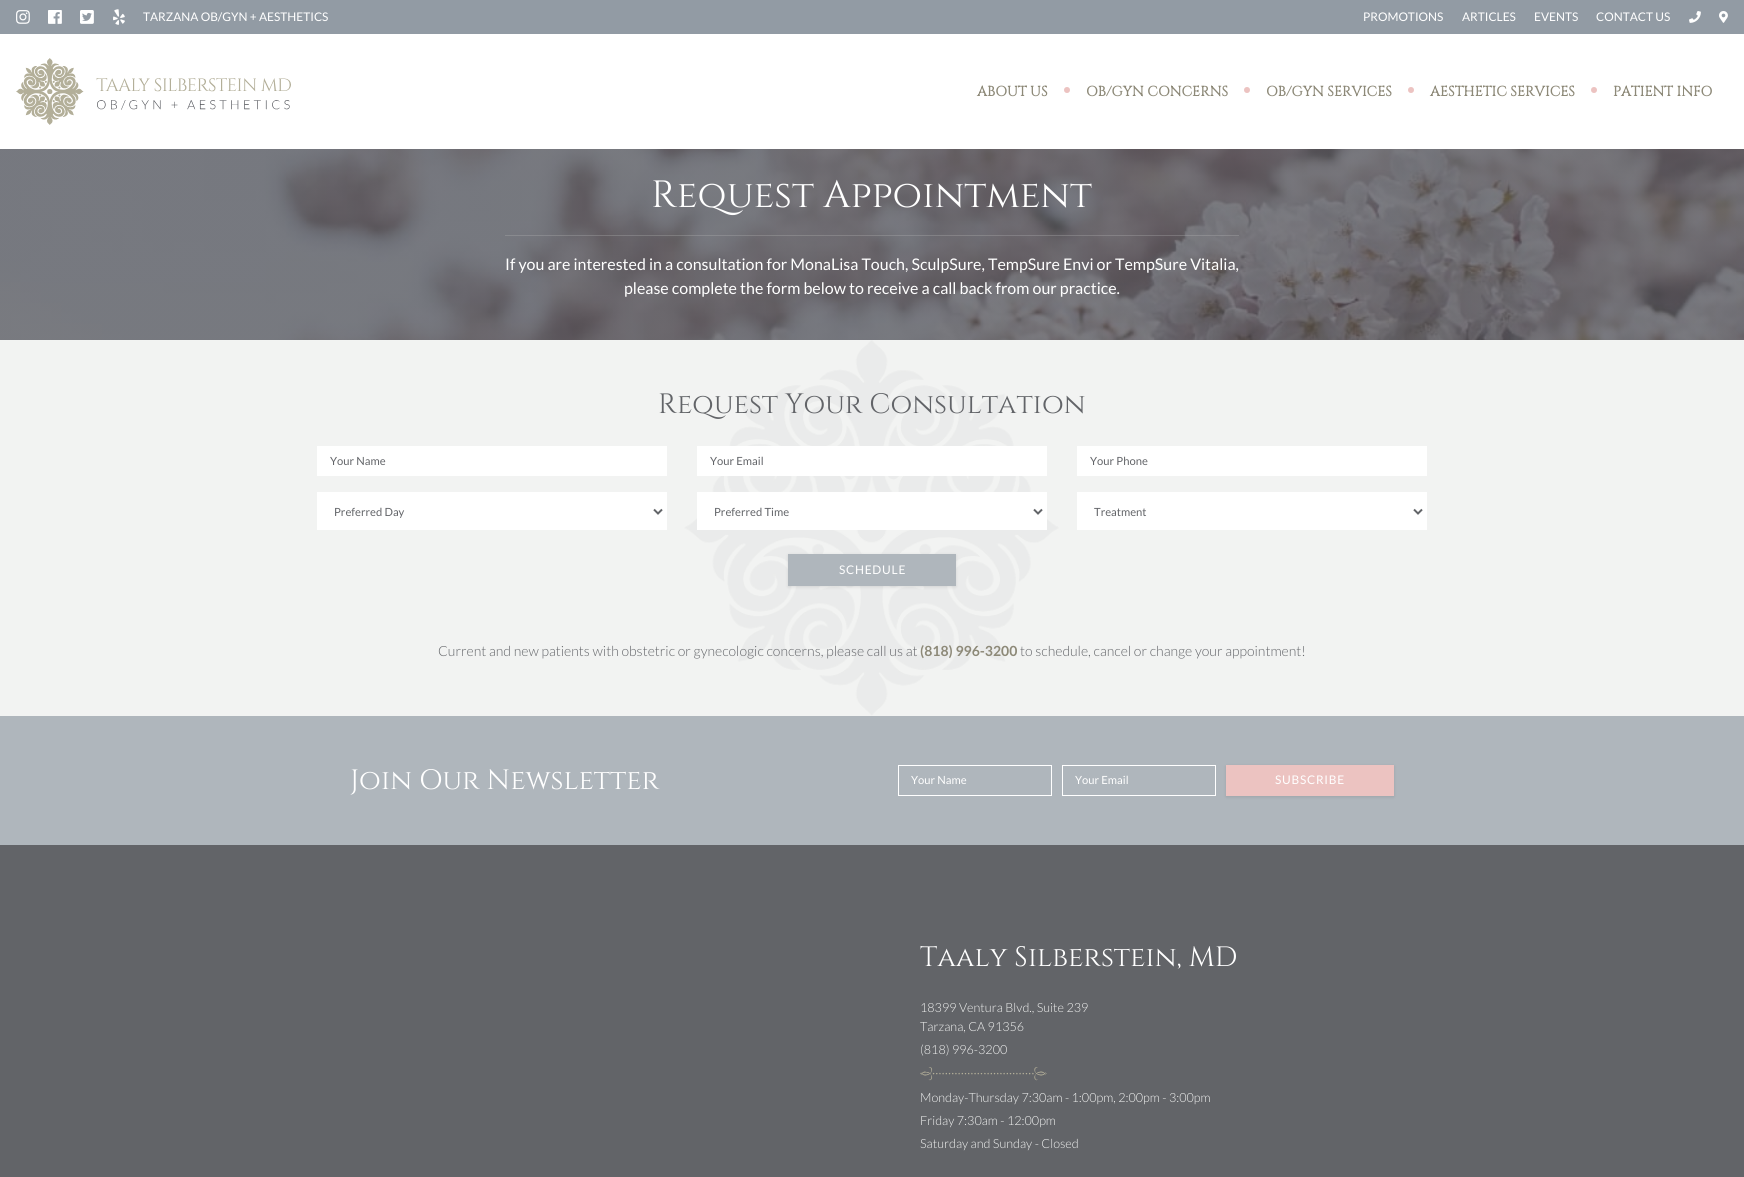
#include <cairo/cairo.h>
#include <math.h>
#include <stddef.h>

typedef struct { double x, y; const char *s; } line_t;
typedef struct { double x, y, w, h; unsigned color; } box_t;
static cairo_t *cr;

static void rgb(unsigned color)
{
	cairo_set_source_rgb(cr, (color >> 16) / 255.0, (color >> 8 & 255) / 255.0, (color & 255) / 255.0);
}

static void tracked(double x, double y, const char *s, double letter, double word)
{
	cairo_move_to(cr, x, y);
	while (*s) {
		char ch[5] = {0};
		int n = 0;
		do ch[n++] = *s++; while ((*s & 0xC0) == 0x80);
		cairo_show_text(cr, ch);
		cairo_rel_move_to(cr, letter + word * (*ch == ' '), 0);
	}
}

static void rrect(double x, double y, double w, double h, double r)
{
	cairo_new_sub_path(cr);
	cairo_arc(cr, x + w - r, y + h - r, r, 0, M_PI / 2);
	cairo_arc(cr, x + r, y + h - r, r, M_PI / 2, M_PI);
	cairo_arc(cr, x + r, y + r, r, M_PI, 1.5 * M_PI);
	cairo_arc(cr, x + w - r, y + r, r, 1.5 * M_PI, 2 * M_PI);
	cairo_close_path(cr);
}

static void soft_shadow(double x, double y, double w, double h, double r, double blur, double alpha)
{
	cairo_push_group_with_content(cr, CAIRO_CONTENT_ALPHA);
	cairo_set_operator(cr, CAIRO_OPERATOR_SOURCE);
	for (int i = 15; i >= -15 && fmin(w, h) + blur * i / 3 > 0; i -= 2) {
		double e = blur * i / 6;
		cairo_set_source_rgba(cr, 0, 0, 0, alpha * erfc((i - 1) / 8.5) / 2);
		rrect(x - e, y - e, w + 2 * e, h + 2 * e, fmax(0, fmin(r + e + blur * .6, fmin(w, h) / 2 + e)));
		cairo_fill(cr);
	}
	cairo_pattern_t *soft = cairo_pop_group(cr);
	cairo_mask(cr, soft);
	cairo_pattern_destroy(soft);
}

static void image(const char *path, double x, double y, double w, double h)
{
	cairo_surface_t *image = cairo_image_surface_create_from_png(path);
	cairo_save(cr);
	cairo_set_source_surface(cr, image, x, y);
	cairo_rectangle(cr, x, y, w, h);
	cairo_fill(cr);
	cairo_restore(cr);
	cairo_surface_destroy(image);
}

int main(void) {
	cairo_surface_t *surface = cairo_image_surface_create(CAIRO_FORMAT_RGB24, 1744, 1177);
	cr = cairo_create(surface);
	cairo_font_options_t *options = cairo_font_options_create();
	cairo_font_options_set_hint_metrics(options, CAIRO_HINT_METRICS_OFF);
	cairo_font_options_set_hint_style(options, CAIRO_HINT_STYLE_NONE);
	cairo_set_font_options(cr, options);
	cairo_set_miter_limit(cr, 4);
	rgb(0xffffff);
	cairo_paint(cr);
	rgb(0x929ba4);
	cairo_rectangle(cr, 0, 0, 1744, 34);
	cairo_fill(cr);
	image("img/1.png", 16, 10, 14, 14);
	image("img/2.png", 48, 10, 14, 14);
	image("img/3.png", 80, 10, 14, 14);
	image("img/4.png", 113, 9, 12, 16);
	image("img/5.png", 1689, 11, 12, 12);
	image("img/6.png", 1719, 11, 9, 12);
	image("img/7.png", 16, 58, 275, 67);
	rgb(0xecc3c1);
	cairo_arc(cr, 1067, 90, 3, 0, 2 * M_PI);
	cairo_fill(cr);
	cairo_arc(cr, 1247, 90, 3, 0, 2 * M_PI);
	cairo_fill(cr);
	cairo_arc(cr, 1411, 90, 3, 0, 2 * M_PI);
	cairo_fill(cr);
	cairo_arc(cr, 1594, 90, 3, 0, 2 * M_PI);
	cairo_fill(cr);
	image("img/8.png", 0, 149, 1744, 191);
	cairo_set_source_rgba(cr, 1, 1, 1, 0.25);
	cairo_rectangle(cr, 505, 235, 734, 1);
	cairo_fill(cr);
	cairo_set_source_rgba(cr, 0, 0, 0, 0.1);
	cairo_rectangle(cr, 505, 235, 734, 1);
	cairo_fill(cr);
	image("img/9.png", 0, 340, 1744, 376);
	{
		static const box_t items[] = {
			{317, 446, 350, 30, 0xffffff},
			{697, 446, 350, 30, 0xffffff},
			{1077, 446, 350, 30, 0xffffff},
			{317, 492, 350, 38, 0xffffff},
		};
		for (size_t i = 0; i < sizeof items / sizeof *items; i++) {
			rgb(items[i].color);
			cairo_rectangle(cr, items[i].x, items[i].y, items[i].w, items[i].h);
			cairo_fill(cr);
		}
	}
	cairo_new_path(cr);
	cairo_move_to(cr, 654, 509.5);
	cairo_line_to(cr, 658, 513.5);
	cairo_line_to(cr, 662, 509.5);
	rgb(0x626468);
	cairo_stroke(cr);
	rgb(0xffffff);
	cairo_rectangle(cr, 697, 492, 350, 38);
	cairo_fill(cr);
	cairo_new_path(cr);
	cairo_move_to(cr, 1034, 509.5);
	cairo_line_to(cr, 1038, 513.5);
	cairo_line_to(cr, 1042, 509.5);
	rgb(0x626468);
	cairo_stroke(cr);
	rgb(0xffffff);
	cairo_rectangle(cr, 1077, 492, 350, 38);
	cairo_fill(cr);
	cairo_new_path(cr);
	cairo_move_to(cr, 1414, 509.5);
	cairo_line_to(cr, 1418, 513.5);
	cairo_line_to(cr, 1422, 509.5);
	rgb(0x626468);
	cairo_stroke(cr);
	rgb(0x000000);
	soft_shadow(788, 555, 168, 32, 0, 1.5, 0.1);
	rgb(0xafb6bc);
	cairo_rectangle(cr, 788, 554, 168, 32);
	cairo_fill(cr);
	cairo_rectangle(cr, 0, 716, 1744, 129);
	cairo_fill(cr);
	cairo_rectangle(cr, 898.5, 765.5, 153, 30);
	rgb(0xffffff);
	cairo_set_line_width(cr, 1);
	cairo_stroke(cr);
	cairo_rectangle(cr, 1062.5, 765.5, 153, 30);
	cairo_stroke(cr);
	rgb(0x000000);
	soft_shadow(1226, 766, 168, 31, 0, 1.5, 0.1);
	rgb(0xecc3c1);
	cairo_rectangle(cr, 1226, 765, 168, 31);
	cairo_fill(cr);
	rgb(0x626468);
	cairo_rectangle(cr, 0, 845, 1744, 332);
	cairo_fill(cr);
	image("img/10.png", 920, 1067, 127, 14);
	cairo_select_font_face(cr, "Lato", CAIRO_FONT_SLANT_NORMAL, CAIRO_FONT_WEIGHT_NORMAL);
	cairo_set_font_size(cr, 11.9);
	rgb(0xffffff);
	{
		static const line_t items[] = {
			{143, 21, "TARZANA OB/GYN + AESTHETICS"},
			{1363, 21, "PROMOTIONS"},
			{1462, 21, "ARTICLES"},
			{1534, 21, "EVENTS"},
			{1596, 21, "CONTACT US"},
		};
		for (size_t i = 0; i < sizeof items / sizeof *items; i++) {
			cairo_move_to(cr, items[i].x, items[i].y);
			cairo_show_text(cr, items[i].s);
		}
	}
	cairo_select_font_face(cr, "Cinzel", CAIRO_FONT_SLANT_NORMAL, CAIRO_FONT_WEIGHT_BOLD);
	cairo_set_font_size(cr, 14);
	rgb(0x8d8978);
	{
		static const line_t items[] = {
			{977, 96, "ABOUT US"},
			{1086, 96, "OB/GYN CONCERNS"},
			{1266, 96, "OB/GYN SERVICES"},
			{1430, 96, "AESTHETIC SERVICES"},
			{1613, 96, "PATIENT INFO"},
		};
		for (size_t i = 0; i < sizeof items / sizeof *items; i++) {
			cairo_move_to(cr, items[i].x, items[i].y);
			cairo_show_text(cr, items[i].s);
		}
	}
	cairo_select_font_face(cr, "Cinzel", CAIRO_FONT_SLANT_NORMAL, CAIRO_FONT_WEIGHT_NORMAL);
	cairo_set_font_size(cr, 38);
	rgb(0xffffff);
	cairo_move_to(cr, 651, 207);
	cairo_show_text(cr, "Request Appointment");
	cairo_select_font_face(cr, "Lato", CAIRO_FONT_SLANT_NORMAL, CAIRO_FONT_WEIGHT_NORMAL);
	cairo_set_font_size(cr, 16);
	cairo_move_to(cr, 505, 270);
	cairo_show_text(cr, "If you are interested in a consultation for MonaLisa Touch, SculpSure, TempSure Envi or TempSure Vitalia,");
	cairo_move_to(cr, 624, 294);
	cairo_show_text(cr, "please complete the form below to receive a call back from our practice.");
	cairo_select_font_face(cr, "Cinzel", CAIRO_FONT_SLANT_NORMAL, CAIRO_FONT_WEIGHT_NORMAL);
	cairo_set_font_size(cr, 28);
	rgb(0x626468);
	cairo_move_to(cr, 658, 413);
	cairo_show_text(cr, "Request Your Consultation");
	cairo_select_font_face(cr, "Lato", CAIRO_FONT_SLANT_NORMAL, CAIRO_FONT_WEIGHT_NORMAL);
	cairo_set_font_size(cr, 11.25);
	{
		static const line_t items[] = {
			{330, 465, "Your Name"},
			{710, 465, "Your Email"},
			{1090, 465, "Your Phone"},
			{334, 516, "Preferred Day"},
			{714, 516, "Preferred Time"},
			{1094, 516, "Treatment"},
		};
		for (size_t i = 0; i < sizeof items / sizeof *items; i++) {
			cairo_move_to(cr, items[i].x, items[i].y);
			cairo_show_text(cr, items[i].s);
		}
	}
	cairo_set_font_size(cr, 11.9);
	rgb(0xffffff);
	tracked(839, 574, "SCHEDULE", 0.75, 0);
	cairo_select_font_face(cr, "Lato Light", CAIRO_FONT_SLANT_NORMAL, CAIRO_FONT_WEIGHT_NORMAL);
	cairo_set_font_size(cr, 14);
	rgb(0x626468);
	cairo_move_to(cr, 438, 656);
	cairo_show_text(cr, "Current and new patients with obstetric or gynecologic concerns, please call us at");
	cairo_select_font_face(cr, "Lato", CAIRO_FONT_SLANT_NORMAL, CAIRO_FONT_WEIGHT_BOLD);
	rgb(0x8d8978);
	cairo_move_to(cr, 920, 656);
	cairo_show_text(cr, "(818) 996-3200");
	cairo_select_font_face(cr, "Lato Light", CAIRO_FONT_SLANT_NORMAL, CAIRO_FONT_WEIGHT_NORMAL);
	rgb(0x626468);
	cairo_move_to(cr, 1020, 656);
	cairo_show_text(cr, "to schedule, cancel or change your appointment!");
	cairo_select_font_face(cr, "Cinzel", CAIRO_FONT_SLANT_NORMAL, CAIRO_FONT_WEIGHT_NORMAL);
	cairo_set_font_size(cr, 28);
	rgb(0xffffff);
	cairo_move_to(cr, 350, 789);
	cairo_show_text(cr, "Join Our Newsletter");
	cairo_select_font_face(cr, "Lato", CAIRO_FONT_SLANT_NORMAL, CAIRO_FONT_WEIGHT_NORMAL);
	cairo_set_font_size(cr, 11.25);
	cairo_move_to(cr, 911, 784);
	cairo_show_text(cr, "Your Name");
	cairo_move_to(cr, 1075, 784);
	cairo_show_text(cr, "Your Email");
	cairo_set_font_size(cr, 11.9);
	tracked(1275, 784, "SUBSCRIBE", 0.75, 0);
	cairo_select_font_face(cr, "Cinzel", CAIRO_FONT_SLANT_NORMAL, CAIRO_FONT_WEIGHT_NORMAL);
	cairo_set_font_size(cr, 28);
	cairo_move_to(cr, 920, 966);
	cairo_show_text(cr, "Taaly Silberstein, MD");
	cairo_select_font_face(cr, "Lato Light", CAIRO_FONT_SLANT_NORMAL, CAIRO_FONT_WEIGHT_NORMAL);
	cairo_set_font_size(cr, 12.6);
	rgb(0xf2f3f2);
	{
		static const line_t items[] = {
			{920, 1012, "18399 Ventura Blvd., Suite 239"},
			{920, 1031, "Tarzana, CA 91356"},
			{920, 1054, "(818) 996-3200"},
			{920, 1102, "Monday-Thursday 7:30am - 1:00pm, 2:00pm - 3:00pm"},
			{920, 1125, "Friday 7:30am - 12:00pm"},
			{920, 1148, "Saturday and Sunday - Closed"},
		};
		for (size_t i = 0; i < sizeof items / sizeof *items; i++) {
			cairo_move_to(cr, items[i].x, items[i].y);
			cairo_show_text(cr, items[i].s);
		}
	}
	cairo_surface_write_to_png(surface, "page.png");
	cairo_font_options_destroy(options);
	cairo_destroy(cr);
	cairo_surface_destroy(surface);
	return 0;
}
